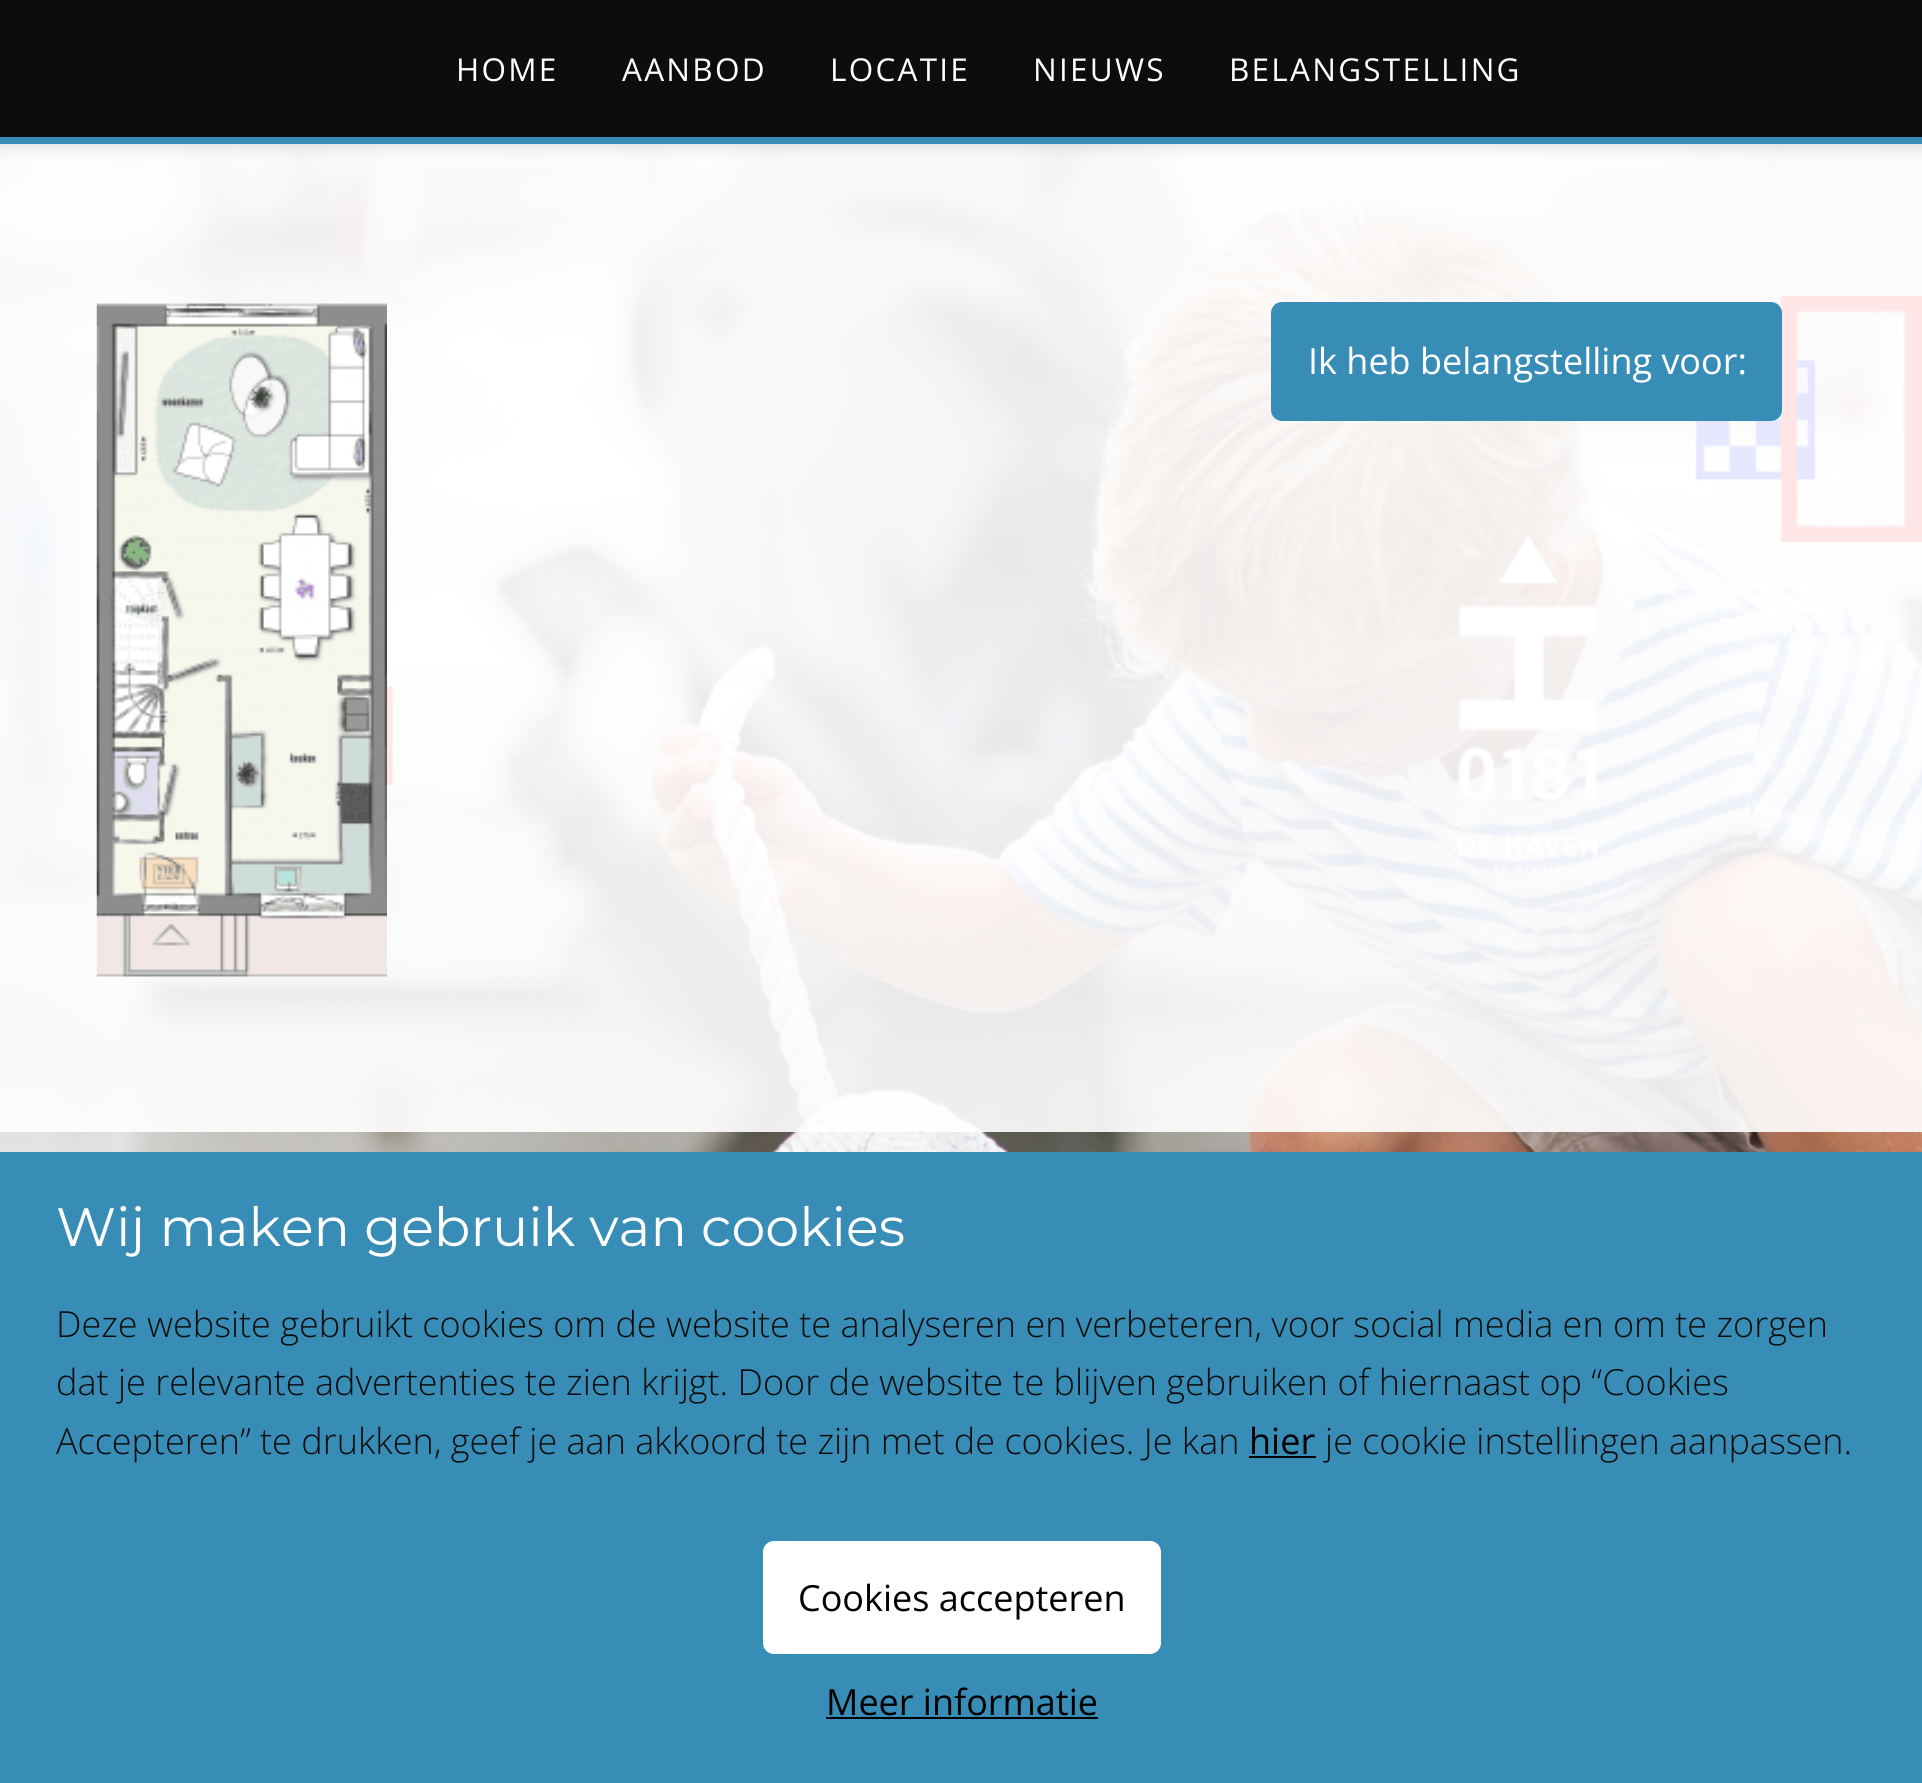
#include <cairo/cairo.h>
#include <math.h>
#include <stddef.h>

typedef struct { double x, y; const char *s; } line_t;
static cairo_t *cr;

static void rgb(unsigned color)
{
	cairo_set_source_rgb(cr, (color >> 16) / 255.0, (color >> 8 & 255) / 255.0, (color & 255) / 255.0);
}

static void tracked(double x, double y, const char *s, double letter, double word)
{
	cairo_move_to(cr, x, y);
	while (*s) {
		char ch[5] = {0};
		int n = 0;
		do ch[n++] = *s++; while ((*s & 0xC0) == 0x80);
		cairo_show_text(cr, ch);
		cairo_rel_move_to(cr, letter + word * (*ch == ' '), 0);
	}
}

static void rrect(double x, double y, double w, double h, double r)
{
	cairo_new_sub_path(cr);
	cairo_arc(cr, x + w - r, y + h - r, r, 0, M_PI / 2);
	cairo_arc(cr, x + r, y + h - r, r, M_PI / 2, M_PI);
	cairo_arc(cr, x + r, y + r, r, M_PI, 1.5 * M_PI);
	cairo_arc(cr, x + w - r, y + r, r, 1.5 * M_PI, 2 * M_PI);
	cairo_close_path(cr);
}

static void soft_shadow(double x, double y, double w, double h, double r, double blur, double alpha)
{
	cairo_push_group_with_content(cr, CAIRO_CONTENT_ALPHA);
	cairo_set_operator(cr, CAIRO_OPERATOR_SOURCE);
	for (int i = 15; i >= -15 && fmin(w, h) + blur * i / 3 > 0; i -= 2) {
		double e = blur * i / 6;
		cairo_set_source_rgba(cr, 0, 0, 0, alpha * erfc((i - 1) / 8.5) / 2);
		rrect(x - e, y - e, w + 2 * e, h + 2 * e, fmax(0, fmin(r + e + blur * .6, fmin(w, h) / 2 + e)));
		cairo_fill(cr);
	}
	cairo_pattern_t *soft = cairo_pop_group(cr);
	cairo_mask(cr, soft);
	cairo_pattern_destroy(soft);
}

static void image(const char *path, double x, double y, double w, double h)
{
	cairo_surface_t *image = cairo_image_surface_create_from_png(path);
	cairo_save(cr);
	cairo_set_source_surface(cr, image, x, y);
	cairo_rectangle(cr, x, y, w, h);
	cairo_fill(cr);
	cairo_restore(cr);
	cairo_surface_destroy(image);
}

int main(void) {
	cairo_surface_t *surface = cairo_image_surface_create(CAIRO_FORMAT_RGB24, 1922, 1783);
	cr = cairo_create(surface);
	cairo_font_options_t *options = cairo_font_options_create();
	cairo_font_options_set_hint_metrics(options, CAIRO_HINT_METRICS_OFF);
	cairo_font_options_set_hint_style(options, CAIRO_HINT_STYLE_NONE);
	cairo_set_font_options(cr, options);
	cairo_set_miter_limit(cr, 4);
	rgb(0xffffff);
	cairo_paint(cr);
	image("img/1.png", 0, 144, 1922, 1008);
	cairo_set_source_rgba(cr, 1, 1, 1, 0.9);
	cairo_rectangle(cr, 0, 144, 1922, 988);
	cairo_fill(cr);
	rgb(0x000000);
	soft_shadow(0, 0, 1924, 144, 0, 9, 0.15);
	rgb(0x0d0d0d);
	cairo_rectangle(cr, 0, 0, 1922, 137);
	cairo_fill(cr);
	rgb(0x388db7);
	cairo_rectangle(cr, 0, 137, 1922, 7);
	cairo_fill(cr);
	image("img/2.png", 96, 303, 291, 674);
	rrect(1271, 302, 511, 119, 11);
	cairo_fill(cr);
	image("img/3.png", 1458, 536, 140, 337);
	cairo_rectangle(cr, 0, 1152, 1922, 631);
	cairo_fill(cr);
	rgb(0x000000);
	cairo_rectangle(cr, 1249, 1456, 67, 2);
	cairo_fill(cr);
	rgb(0xffffff);
	rrect(763, 1541, 398, 113, 11);
	cairo_fill(cr);
	rgb(0x000000);
	cairo_rectangle(cr, 826, 1717, 272, 2);
	cairo_fill(cr);
	cairo_select_font_face(cr, "Open Sans", CAIRO_FONT_SLANT_NORMAL, CAIRO_FONT_WEIGHT_NORMAL);
	cairo_set_font_size(cr, 31.5);
	rgb(0xffffff);
	{
		static const line_t items[] = {
			{456, 81, "HOME"},
			{622, 81, "AANBOD"},
			{830, 81, "LOCATIE"},
			{1033, 81, "NIEUWS"},
			{1229, 81, "BELANGSTELLING"},
		};
		for (size_t i = 0; i < sizeof items / sizeof *items; i++) {
			tracked(items[i].x, items[i].y, items[i].s, 2.25, 0);
		}
	}
	cairo_set_font_size(cr, 36);
	cairo_move_to(cr, 1308, 374);
	cairo_show_text(cr, "Ik heb belangstelling voor:");
	cairo_select_font_face(cr, "Montserrat Thin", CAIRO_FONT_SLANT_NORMAL, CAIRO_FONT_WEIGHT_NORMAL);
	cairo_set_font_size(cr, 54);
	cairo_move_to(cr, 56, 1246);
	cairo_show_text(cr, "Wij maken gebruik van cookies");
	cairo_select_font_face(cr, "Open Sans Light", CAIRO_FONT_SLANT_NORMAL, CAIRO_FONT_WEIGHT_NORMAL);
	cairo_set_font_size(cr, 36);
	rgb(0x0d0d0d);
	{
		static const line_t items[] = {
			{56, 1337, "Deze website gebruikt cookies om de website te analyseren en verbeteren, voor social media en om te zorgen"},
			{56, 1395, "dat je relevante advertenties te zien krijgt. Door de website te blijven gebruiken of hiernaast op “Cookies"},
			{56, 1454, "Accepteren” te drukken, geef je aan akkoord te zijn met de cookies. Je kan"},
		};
		for (size_t i = 0; i < sizeof items / sizeof *items; i++) {
			cairo_move_to(cr, items[i].x, items[i].y);
			cairo_show_text(cr, items[i].s);
		}
	}
	cairo_select_font_face(cr, "Open Sans", CAIRO_FONT_SLANT_NORMAL, CAIRO_FONT_WEIGHT_NORMAL);
	rgb(0x000000);
	cairo_move_to(cr, 1249, 1454);
	cairo_show_text(cr, "hier");
	cairo_select_font_face(cr, "Open Sans Light", CAIRO_FONT_SLANT_NORMAL, CAIRO_FONT_WEIGHT_NORMAL);
	rgb(0x0d0d0d);
	cairo_move_to(cr, 1325, 1454);
	cairo_show_text(cr, "je cookie instellingen aanpassen.");
	cairo_select_font_face(cr, "Open Sans", CAIRO_FONT_SLANT_NORMAL, CAIRO_FONT_WEIGHT_NORMAL);
	rgb(0x000000);
	cairo_move_to(cr, 798, 1611);
	cairo_show_text(cr, "Cookies accepteren");
	cairo_move_to(cr, 826, 1715);
	cairo_show_text(cr, "Meer informatie");
	cairo_surface_write_to_png(surface, "page.png");
	cairo_font_options_destroy(options);
	cairo_destroy(cr);
	cairo_surface_destroy(surface);
	return 0;
}
